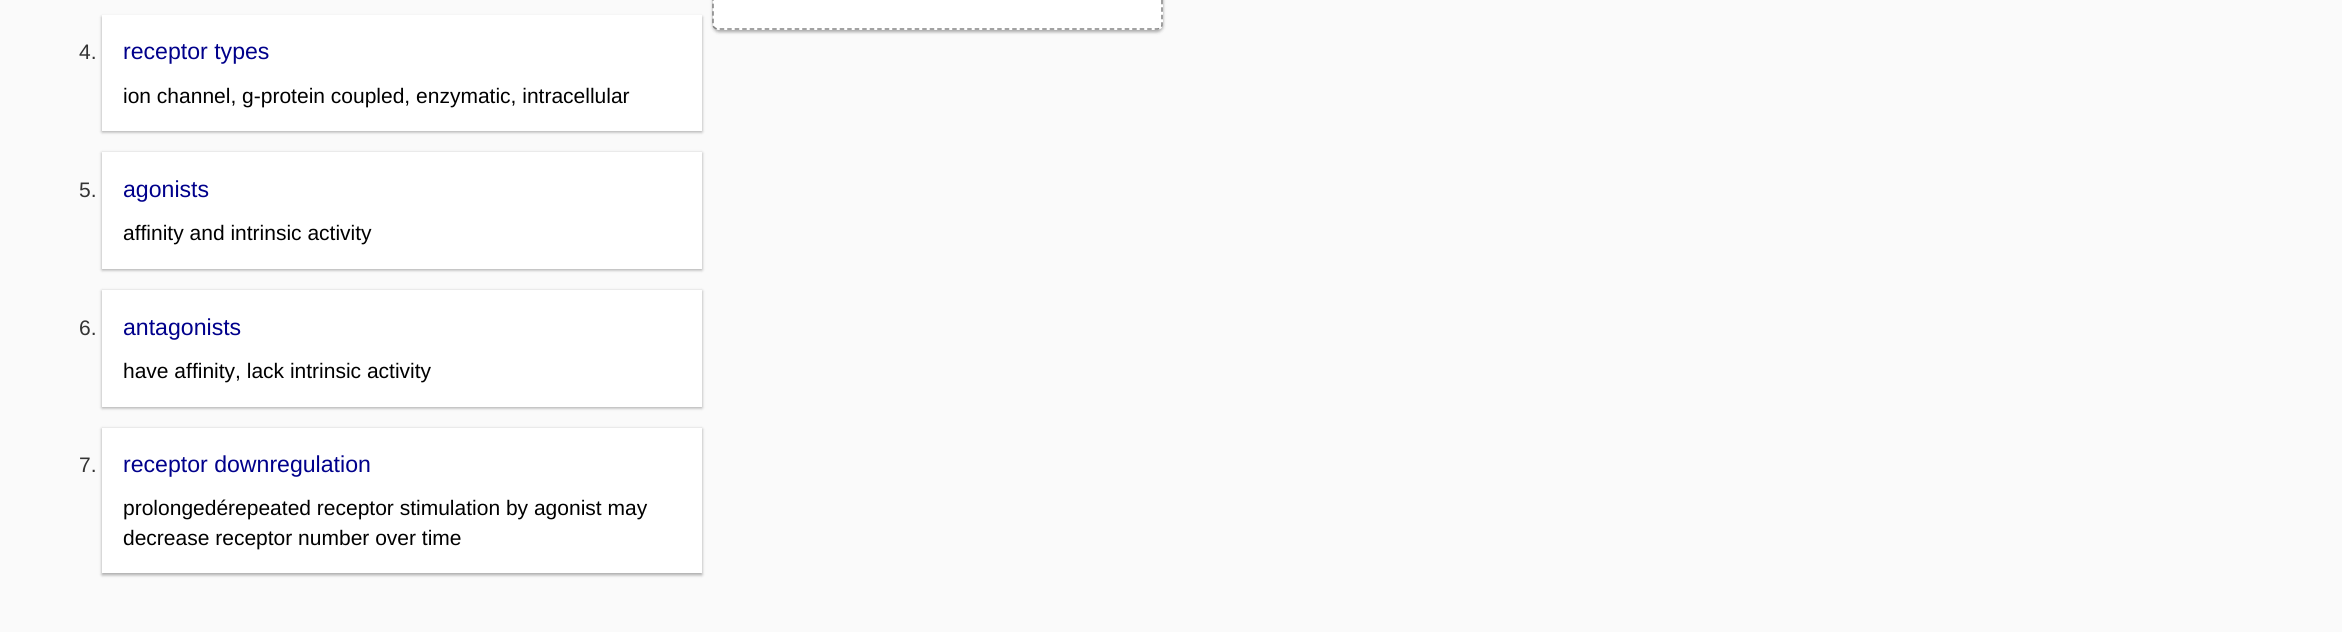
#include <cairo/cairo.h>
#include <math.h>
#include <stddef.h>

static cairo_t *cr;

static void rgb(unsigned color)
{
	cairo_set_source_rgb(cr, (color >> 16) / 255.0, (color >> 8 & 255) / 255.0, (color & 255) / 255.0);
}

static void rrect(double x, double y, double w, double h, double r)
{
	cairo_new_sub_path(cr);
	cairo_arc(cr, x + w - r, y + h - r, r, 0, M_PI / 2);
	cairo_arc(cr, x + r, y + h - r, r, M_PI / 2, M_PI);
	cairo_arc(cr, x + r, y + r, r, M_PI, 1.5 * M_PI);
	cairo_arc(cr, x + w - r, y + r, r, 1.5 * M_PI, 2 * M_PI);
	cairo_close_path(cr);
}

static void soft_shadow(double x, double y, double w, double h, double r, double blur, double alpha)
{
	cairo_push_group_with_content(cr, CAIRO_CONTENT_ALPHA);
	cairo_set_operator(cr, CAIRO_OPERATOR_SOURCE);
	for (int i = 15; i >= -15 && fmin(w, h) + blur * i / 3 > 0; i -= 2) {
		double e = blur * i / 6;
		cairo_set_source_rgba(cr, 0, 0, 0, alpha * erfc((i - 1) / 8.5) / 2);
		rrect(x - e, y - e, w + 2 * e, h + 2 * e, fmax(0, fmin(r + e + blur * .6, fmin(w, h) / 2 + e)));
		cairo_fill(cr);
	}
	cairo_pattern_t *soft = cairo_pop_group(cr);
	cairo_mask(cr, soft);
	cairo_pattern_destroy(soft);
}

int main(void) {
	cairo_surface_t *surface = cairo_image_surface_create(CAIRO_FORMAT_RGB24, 2342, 632);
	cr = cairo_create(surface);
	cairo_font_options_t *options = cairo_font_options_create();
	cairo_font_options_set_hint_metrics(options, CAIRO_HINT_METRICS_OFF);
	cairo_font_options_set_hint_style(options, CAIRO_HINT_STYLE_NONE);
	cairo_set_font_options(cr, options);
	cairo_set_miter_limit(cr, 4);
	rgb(0xfafafa);
	cairo_paint(cr);
	rgb(0x000000);
	soft_shadow(713, -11, 450, 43, 6, 1.5, 0.24);
	soft_shadow(713, -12, 450, 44, 6, 2, 0.12);
	rgb(0xffffff);
	rrect(713, -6, 450, 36, 6);
	cairo_fill(cr);
	cairo_new_path(cr);
	cairo_move_to(cr, 718, -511);
	cairo_line_to(cr, 1157, -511);
	cairo_curve_to(cr, 1159.5, -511, 1162, -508.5, 1162, -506);
	cairo_line_to(cr, 1162, 25);
	cairo_curve_to(cr, 1162, 27, 1159.5, 29, 1157, 29);
	cairo_line_to(cr, 718, 29);
	cairo_curve_to(cr, 715.5, 29, 713, 27, 713, 25);
	cairo_line_to(cr, 713, -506);
	cairo_curve_to(cr, 713, -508.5, 715.5, -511, 718, -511);
	cairo_close_path(cr);
	rgb(0x808080);
	cairo_set_line_width(cr, 1.5);
	cairo_set_dash(cr, (double[]){4.5, 3}, 2, 0);
	cairo_stroke(cr);
	rgb(0x000000);
	soft_shadow(102, 17, 600, 115, 0, 1.5, 0.24);
	soft_shadow(102, 17, 600, 115, 0, 2, 0.12);
	rgb(0xffffff);
	cairo_rectangle(cr, 102, 15, 600, 116);
	cairo_fill(cr);
	rgb(0x000000);
	soft_shadow(102, 153, 600, 117, 0, 1.5, 0.24);
	soft_shadow(102, 153, 600, 117, 0, 2, 0.12);
	rgb(0xffffff);
	cairo_rectangle(cr, 102, 152, 600, 117);
	cairo_fill(cr);
	rgb(0x000000);
	soft_shadow(102, 291, 600, 117, 0, 1.5, 0.24);
	soft_shadow(102, 291, 600, 117, 0, 2, 0.12);
	rgb(0xffffff);
	cairo_rectangle(cr, 102, 290, 600, 117);
	cairo_fill(cr);
	rgb(0x000000);
	soft_shadow(102, 429, 600, 146, 0, 1.5, 0.24);
	soft_shadow(102, 429, 600, 146, 0, 2, 0.12);
	rgb(0xffffff);
	cairo_rectangle(cr, 102, 428, 600, 145);
	cairo_fill(cr);
	cairo_select_font_face(cr, "Liberation Sans", CAIRO_FONT_SLANT_NORMAL, CAIRO_FONT_WEIGHT_NORMAL);
	cairo_set_font_size(cr, 21);
	rgb(0x333333);
	cairo_move_to(cr, 79, 59);
	cairo_show_text(cr, "4.");
	cairo_set_font_size(cr, 23.1);
	rgb(0x00008b);
	cairo_move_to(cr, 123, 59);
	cairo_show_text(cr, "receptor types");
	cairo_set_font_size(cr, 21);
	rgb(0x000000);
	cairo_move_to(cr, 123, 103);
	cairo_show_text(cr, "ion channel, g-protein coupled, enzymatic, intracellular");
	rgb(0x333333);
	cairo_move_to(cr, 79, 197);
	cairo_show_text(cr, "5.");
	cairo_set_font_size(cr, 23.1);
	rgb(0x00008b);
	cairo_move_to(cr, 123, 197);
	cairo_show_text(cr, "agonists");
	cairo_set_font_size(cr, 21);
	rgb(0x000000);
	cairo_move_to(cr, 123, 240);
	cairo_show_text(cr, "affinity and intrinsic activity");
	rgb(0x333333);
	cairo_move_to(cr, 79, 335);
	cairo_show_text(cr, "6.");
	cairo_set_font_size(cr, 23.1);
	rgb(0x00008b);
	cairo_move_to(cr, 123, 335);
	cairo_show_text(cr, "antagonists");
	cairo_set_font_size(cr, 21);
	rgb(0x000000);
	cairo_move_to(cr, 123, 378);
	cairo_show_text(cr, "have affinity, lack intrinsic activity");
	rgb(0x333333);
	cairo_move_to(cr, 79, 472);
	cairo_show_text(cr, "7.");
	cairo_set_font_size(cr, 23.1);
	rgb(0x00008b);
	cairo_move_to(cr, 123, 472);
	cairo_show_text(cr, "receptor downregulation");
	cairo_set_font_size(cr, 21);
	rgb(0x000000);
	cairo_move_to(cr, 123, 515);
	cairo_show_text(cr, "prolongedérepeated receptor stimulation by agonist may");
	cairo_move_to(cr, 123, 545);
	cairo_show_text(cr, "decrease receptor number over time");
	cairo_surface_write_to_png(surface, "page.png");
	cairo_font_options_destroy(options);
	cairo_destroy(cr);
	cairo_surface_destroy(surface);
	return 0;
}
